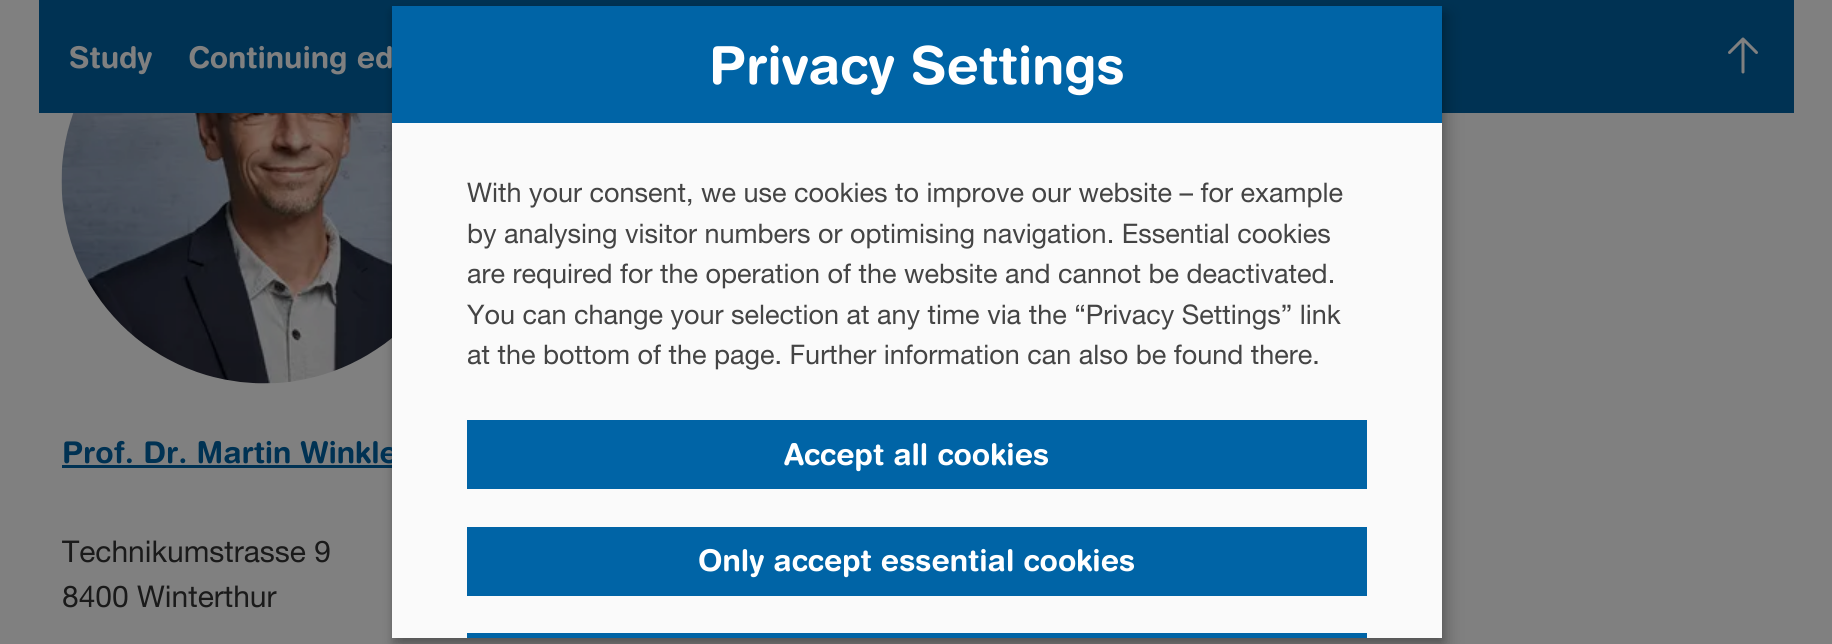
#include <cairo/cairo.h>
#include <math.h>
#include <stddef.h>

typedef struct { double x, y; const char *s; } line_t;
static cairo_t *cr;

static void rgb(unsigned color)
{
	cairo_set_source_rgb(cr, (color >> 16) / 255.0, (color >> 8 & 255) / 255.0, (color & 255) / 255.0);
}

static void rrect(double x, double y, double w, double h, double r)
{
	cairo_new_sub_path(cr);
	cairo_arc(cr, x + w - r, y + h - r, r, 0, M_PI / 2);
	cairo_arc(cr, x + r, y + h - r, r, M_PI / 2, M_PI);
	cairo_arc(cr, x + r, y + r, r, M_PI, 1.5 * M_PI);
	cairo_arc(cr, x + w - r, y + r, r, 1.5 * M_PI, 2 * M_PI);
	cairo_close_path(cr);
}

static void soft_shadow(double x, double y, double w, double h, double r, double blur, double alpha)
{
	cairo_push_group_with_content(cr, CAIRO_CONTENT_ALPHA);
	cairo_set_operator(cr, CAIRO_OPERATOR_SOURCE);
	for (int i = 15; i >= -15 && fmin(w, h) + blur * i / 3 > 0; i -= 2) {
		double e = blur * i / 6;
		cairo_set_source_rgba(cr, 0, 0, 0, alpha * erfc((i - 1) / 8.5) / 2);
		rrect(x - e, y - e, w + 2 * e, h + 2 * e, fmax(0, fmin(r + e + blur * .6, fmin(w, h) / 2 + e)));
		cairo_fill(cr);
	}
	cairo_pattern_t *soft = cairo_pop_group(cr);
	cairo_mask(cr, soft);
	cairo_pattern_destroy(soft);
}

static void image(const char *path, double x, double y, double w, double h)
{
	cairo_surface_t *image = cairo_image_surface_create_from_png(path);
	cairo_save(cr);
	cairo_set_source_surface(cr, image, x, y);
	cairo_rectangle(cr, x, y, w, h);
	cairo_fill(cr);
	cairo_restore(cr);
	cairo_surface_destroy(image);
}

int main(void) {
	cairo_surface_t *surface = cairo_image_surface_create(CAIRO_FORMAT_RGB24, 1832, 644);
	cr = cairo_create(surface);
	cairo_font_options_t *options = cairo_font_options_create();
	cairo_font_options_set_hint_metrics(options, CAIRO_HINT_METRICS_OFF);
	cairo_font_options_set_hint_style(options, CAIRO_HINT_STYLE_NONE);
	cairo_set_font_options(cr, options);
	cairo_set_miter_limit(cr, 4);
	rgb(0x808080);
	cairo_paint(cr);
	rgb(0x003253);
	cairo_rectangle(cr, 39, 0, 1755, 113);
	cairo_fill(cr);
	cairo_new_path(cr);
	cairo_move_to(cr, 1743, 72);
	cairo_line_to(cr, 1743, 39);
	cairo_move_to(cr, 1729.5, 52.5);
	cairo_line_to(cr, 1743, 39);
	cairo_line_to(cr, 1756.5, 52.5);
	rgb(0x808080);
	cairo_set_line_width(cr, 3);
	cairo_set_line_cap(cr, CAIRO_LINE_CAP_ROUND);
	cairo_set_line_join(cr, CAIRO_LINE_JOIN_ROUND);
	cairo_stroke(cr);
	image("img/1.png", 61, 113, 331, 271);
	rgb(0x003253);
	cairo_rectangle(cr, 62, 465, 330, 3);
	cairo_fill(cr);
	rgb(0x000000);
	soft_shadow(399, 14, 1050, 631, 0, 7.5, 0.19);
	soft_shadow(392, 12, 1050, 632, 0, 4.5, 0.2);
	rgb(0x0064a6);
	cairo_rectangle(cr, 392, 6, 1050, 117);
	cairo_fill(cr);
	cairo_select_font_face(cr, "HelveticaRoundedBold", CAIRO_FONT_SLANT_NORMAL, CAIRO_FONT_WEIGHT_BOLD);
	cairo_set_font_size(cr, 30);
	rgb(0x808080);
	cairo_move_to(cr, 69, 68);
	cairo_show_text(cr, "Study");
	cairo_move_to(cr, 188, 68);
	cairo_show_text(cr, "Continuing ed");
	cairo_set_font_size(cr, 52.5);
	rgb(0xffffff);
	cairo_move_to(cr, 709, 84);
	cairo_show_text(cr, "Privacy Settings");
	cairo_set_font_size(cr, 30);
	rgb(0x003253);
	cairo_move_to(cr, 62, 463);
	cairo_show_text(cr, "Prof. Dr. Martin Winkle");
	rgb(0xfafafa);
	cairo_rectangle(cr, 392, 123, 1050, 515);
	cairo_fill(cr);
	rgb(0x0064a6);
	cairo_rectangle(cr, 467, 527, 900, 69);
	cairo_fill(cr);
	rgb(0xffffff);
	cairo_move_to(cr, 698, 571);
	cairo_show_text(cr, "Only accept essential cookies");
	rgb(0x0064a6);
	cairo_rectangle(cr, 467, 420, 900, 69);
	cairo_fill(cr);
	rgb(0xffffff);
	cairo_move_to(cr, 784, 465);
	cairo_show_text(cr, "Accept all cookies");
	cairo_select_font_face(cr, "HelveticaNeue", CAIRO_FONT_SLANT_NORMAL, CAIRO_FONT_WEIGHT_NORMAL);
	cairo_set_font_size(cr, 27);
	rgb(0x444444);
	{
		static const line_t items[] = {
			{467, 364, "at the bottom of the page. Further information can also be found there."},
			{467, 324, "You can change your selection at any time via the “Privacy Settings” link"},
			{467, 283, "are required for the operation of the website and cannot be deactivated."},
			{467, 243, "by analysing visitor numbers or optimising navigation. Essential cookies"},
			{467, 202, "With your consent, we use cookies to improve our website – for example"},
		};
		for (size_t i = 0; i < sizeof items / sizeof *items; i++) {
			cairo_move_to(cr, items[i].x, items[i].y);
			cairo_show_text(cr, items[i].s);
		}
	}
	rgb(0x0064a6);
	cairo_rectangle(cr, 467, 633, 900, 5);
	cairo_fill(cr);
	cairo_set_font_size(cr, 30);
	rgb(0x1a1a1a);
	cairo_move_to(cr, 62, 562);
	cairo_show_text(cr, "Technikumstrasse 9");
	cairo_move_to(cr, 62, 607);
	cairo_show_text(cr, "8400 Winterthur");
	cairo_surface_write_to_png(surface, "page.png");
	cairo_font_options_destroy(options);
	cairo_destroy(cr);
	cairo_surface_destroy(surface);
	return 0;
}
